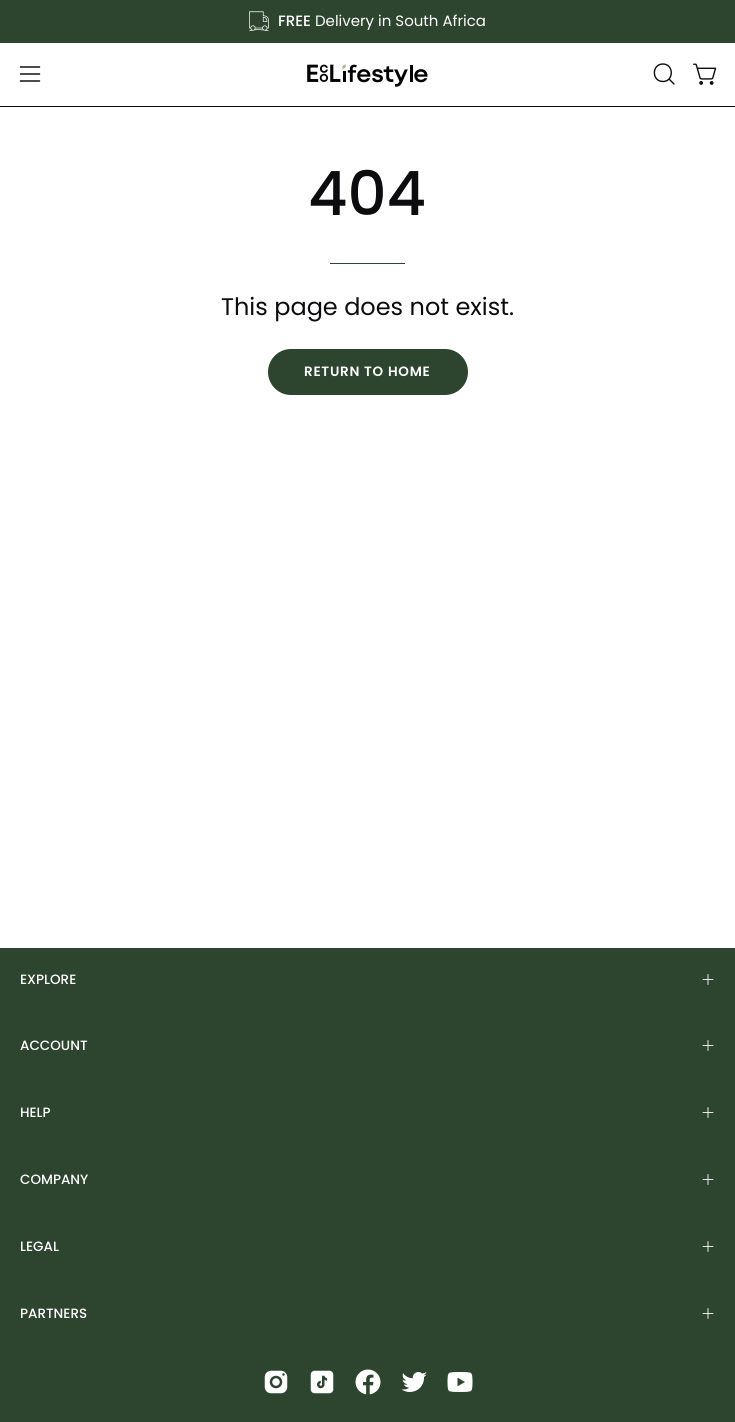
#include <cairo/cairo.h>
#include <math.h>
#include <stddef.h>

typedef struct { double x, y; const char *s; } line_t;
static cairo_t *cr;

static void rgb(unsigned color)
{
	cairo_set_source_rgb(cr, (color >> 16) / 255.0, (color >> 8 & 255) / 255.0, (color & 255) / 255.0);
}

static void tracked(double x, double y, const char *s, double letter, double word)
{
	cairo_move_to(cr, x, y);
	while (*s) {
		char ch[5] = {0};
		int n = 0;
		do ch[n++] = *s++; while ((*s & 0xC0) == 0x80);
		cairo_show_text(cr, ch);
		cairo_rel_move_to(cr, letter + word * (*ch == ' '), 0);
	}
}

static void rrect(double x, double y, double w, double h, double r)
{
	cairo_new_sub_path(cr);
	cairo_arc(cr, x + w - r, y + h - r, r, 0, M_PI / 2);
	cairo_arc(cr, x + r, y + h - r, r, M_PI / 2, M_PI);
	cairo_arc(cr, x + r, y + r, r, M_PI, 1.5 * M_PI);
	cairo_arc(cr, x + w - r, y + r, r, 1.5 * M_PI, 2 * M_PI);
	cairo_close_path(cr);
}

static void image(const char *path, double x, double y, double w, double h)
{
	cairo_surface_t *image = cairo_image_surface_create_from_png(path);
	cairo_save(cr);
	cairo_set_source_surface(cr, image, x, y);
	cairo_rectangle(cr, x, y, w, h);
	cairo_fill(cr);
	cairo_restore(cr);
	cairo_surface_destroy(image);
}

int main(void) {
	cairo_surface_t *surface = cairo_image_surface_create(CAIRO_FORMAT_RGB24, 735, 1422);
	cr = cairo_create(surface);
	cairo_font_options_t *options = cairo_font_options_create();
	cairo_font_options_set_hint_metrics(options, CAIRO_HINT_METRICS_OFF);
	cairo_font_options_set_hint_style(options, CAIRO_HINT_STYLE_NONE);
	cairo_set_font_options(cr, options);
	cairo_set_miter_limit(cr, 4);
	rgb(0xffffff);
	cairo_paint(cr);
	rgb(0x2d442e);
	cairo_rectangle(cr, 0, 0, 735, 43);
	cairo_fill(cr);
	image("img/1.png", 249, 11, 20, 21);
	cairo_new_path(cr);
	cairo_move_to(cr, 20.5, 74);
	cairo_line_to(cr, 39.5, 74);
	cairo_move_to(cr, 20.5, 67);
	cairo_line_to(cr, 39.5, 67);
	cairo_move_to(cr, 20.5, 81);
	cairo_line_to(cr, 39.5, 81);
	rgb(0x0c0c0f);
	cairo_set_line_width(cr, 1.5);
	cairo_set_line_cap(cr, CAIRO_LINE_CAP_ROUND);
	cairo_set_line_join(cr, CAIRO_LINE_JOIN_ROUND);
	cairo_stroke(cr);
	image("img/2.png", 307, 64, 121, 23);
	cairo_new_path(cr);
	cairo_move_to(cr, 663, 81.5);
	cairo_curve_to(cr, 674, 81.5, 674, 64, 663, 64);
	cairo_curve_to(cr, 651.5, 64, 651.5, 81.5, 663, 81.5);
	cairo_close_path(cr);
	cairo_move_to(cr, 669, 79);
	cairo_line_to(cr, 674, 84);
	cairo_set_line_width(cr, 1.4);
	cairo_stroke(cr);
	image("img/3.png", 693, 63, 24, 22);
	cairo_rectangle(cr, 0, 106, 735, 1);
	cairo_fill(cr);
	rgb(0x2d442e);
	cairo_rectangle(cr, 330, 263, 75, 1);
	cairo_fill(cr);
	rrect(268, 349, 200, 46, 23);
	cairo_fill(cr);
	cairo_rectangle(cr, 0, 948, 735, 474);
	cairo_fill(cr);
	cairo_new_path(cr);
	cairo_move_to(cr, 703, 979.5);
	cairo_line_to(cr, 713, 979.5);
	cairo_move_to(cr, 708, 974.5);
	cairo_line_to(cr, 708, 984.5);
	rgb(0xffffff);
	cairo_set_line_width(cr, 0.9);
	cairo_stroke(cr);
	cairo_new_path(cr);
	cairo_move_to(cr, 703, 1045.5);
	cairo_line_to(cr, 713, 1045.5);
	cairo_move_to(cr, 708, 1040.5);
	cairo_line_to(cr, 708, 1050.5);
	cairo_stroke(cr);
	cairo_new_path(cr);
	cairo_move_to(cr, 703, 1112.5);
	cairo_line_to(cr, 713, 1112.5);
	cairo_move_to(cr, 708, 1107.5);
	cairo_line_to(cr, 708, 1117.5);
	cairo_stroke(cr);
	cairo_new_path(cr);
	cairo_move_to(cr, 703, 1179.5);
	cairo_line_to(cr, 713, 1179.5);
	cairo_move_to(cr, 708, 1174.5);
	cairo_line_to(cr, 708, 1184.5);
	cairo_stroke(cr);
	cairo_new_path(cr);
	cairo_move_to(cr, 703, 1246.5);
	cairo_line_to(cr, 713, 1246.5);
	cairo_move_to(cr, 708, 1241.5);
	cairo_line_to(cr, 708, 1251.5);
	cairo_stroke(cr);
	cairo_new_path(cr);
	cairo_move_to(cr, 703, 1313.5);
	cairo_line_to(cr, 713, 1313.5);
	cairo_move_to(cr, 708, 1308.5);
	cairo_line_to(cr, 708, 1318.5);
	cairo_stroke(cr);
	image("img/4.png", 264, 1370, 24, 24);
	image("img/5.png", 310, 1370, 24, 24);
	image("img/6.png", 355, 1369, 26, 26);
	image("img/7.png", 401, 1372, 26, 20);
	image("img/8.png", 447, 1372, 26, 20);
	cairo_select_font_face(cr, "Poppins Medium", CAIRO_FONT_SLANT_NORMAL, CAIRO_FONT_WEIGHT_NORMAL);
	cairo_set_font_size(cr, 15);
	cairo_move_to(cr, 278, 26);
	cairo_show_text(cr, "FREE");
	cairo_select_font_face(cr, "Poppins", CAIRO_FONT_SLANT_NORMAL, CAIRO_FONT_WEIGHT_NORMAL);
	cairo_move_to(cr, 315, 26);
	cairo_show_text(cr, "Delivery in South Africa");
	cairo_select_font_face(cr, "Poppins Medium", CAIRO_FONT_SLANT_NORMAL, CAIRO_FONT_WEIGHT_NORMAL);
	cairo_set_font_size(cr, 61);
	rgb(0x0c0c0f);
	cairo_move_to(cr, 308, 215);
	cairo_show_text(cr, "404");
	cairo_select_font_face(cr, "Poppins", CAIRO_FONT_SLANT_NORMAL, CAIRO_FONT_WEIGHT_NORMAL);
	cairo_set_font_size(cr, 24);
	cairo_move_to(cr, 221, 315);
	cairo_show_text(cr, "This page does not exist.");
	cairo_select_font_face(cr, "Poppins SemiBold", CAIRO_FONT_SLANT_NORMAL, CAIRO_FONT_WEIGHT_NORMAL);
	cairo_set_font_size(cr, 13.5);
	rgb(0xffffff);
	tracked(304, 376, "RETURN TO HOME", 0.75, 0);
	cairo_select_font_face(cr, "Poppins Medium", CAIRO_FONT_SLANT_NORMAL, CAIRO_FONT_WEIGHT_NORMAL);
	{
		static const line_t items[] = {
			{20, 984, "EXPLORE"},
			{20, 1050, "ACCOUNT"},
			{20, 1117, "HELP"},
			{20, 1184, "COMPANY"},
			{20, 1251, "LEGAL"},
			{20, 1318, "PARTNERS"},
		};
		for (size_t i = 0; i < sizeof items / sizeof *items; i++) {
			cairo_move_to(cr, items[i].x, items[i].y);
			cairo_show_text(cr, items[i].s);
		}
	}
	cairo_surface_write_to_png(surface, "page.png");
	cairo_font_options_destroy(options);
	cairo_destroy(cr);
	cairo_surface_destroy(surface);
	return 0;
}
